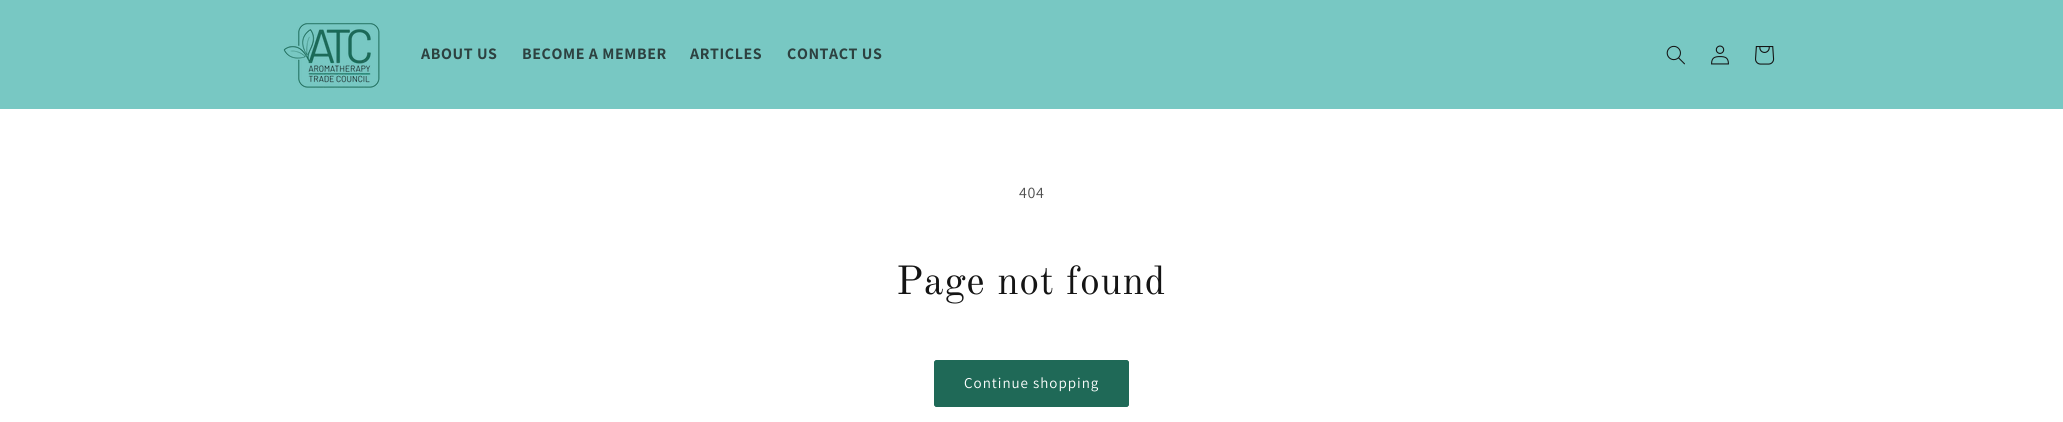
#include <cairo/cairo.h>
#include <math.h>
#include <stddef.h>

typedef struct { double x, y; const char *s; } line_t;
static cairo_t *cr;

static void rgb(unsigned color)
{
	cairo_set_source_rgb(cr, (color >> 16) / 255.0, (color >> 8 & 255) / 255.0, (color & 255) / 255.0);
}

static void tracked(double x, double y, const char *s, double letter, double word)
{
	cairo_move_to(cr, x, y);
	while (*s) {
		char ch[5] = {0};
		int n = 0;
		do ch[n++] = *s++; while ((*s & 0xC0) == 0x80);
		cairo_show_text(cr, ch);
		cairo_rel_move_to(cr, letter + word * (*ch == ' '), 0);
	}
}

static void rrect(double x, double y, double w, double h, double r)
{
	cairo_new_sub_path(cr);
	cairo_arc(cr, x + w - r, y + h - r, r, 0, M_PI / 2);
	cairo_arc(cr, x + r, y + h - r, r, M_PI / 2, M_PI);
	cairo_arc(cr, x + r, y + r, r, M_PI, 1.5 * M_PI);
	cairo_arc(cr, x + w - r, y + r, r, 1.5 * M_PI, 2 * M_PI);
	cairo_close_path(cr);
}

static void image(const char *path, double x, double y, double w, double h)
{
	cairo_surface_t *image = cairo_image_surface_create_from_png(path);
	cairo_save(cr);
	cairo_set_source_surface(cr, image, x, y);
	cairo_rectangle(cr, x, y, w, h);
	cairo_fill(cr);
	cairo_restore(cr);
	cairo_surface_destroy(image);
}

int main(void) {
	cairo_surface_t *surface = cairo_image_surface_create(CAIRO_FORMAT_RGB24, 2063, 422);
	cr = cairo_create(surface);
	cairo_font_options_t *options = cairo_font_options_create();
	cairo_font_options_set_hint_metrics(options, CAIRO_HINT_METRICS_OFF);
	cairo_font_options_set_hint_style(options, CAIRO_HINT_STYLE_NONE);
	cairo_set_font_options(cr, options);
	cairo_set_miter_limit(cr, 4);
	rgb(0xffffff);
	cairo_paint(cr);
	rgb(0x78c8c3);
	cairo_rectangle(cr, 0, 0, 2063, 109);
	cairo_fill(cr);
	image("img/1.png", 283, 23, 97, 65);
	image("img/2.png", 1666, 45, 19, 20);
	image("img/3.png", 1711, 45, 18, 20);
	image("img/4.png", 1755, 46, 20, 19);
	rgb(0x1f6957);
	rrect(934, 360, 195, 47, 3);
	cairo_fill(cr);
	rrect(934.5, 360.5, 194, 46, 2.5);
	cairo_set_line_width(cr, 1);
	cairo_stroke(cr);
	cairo_select_font_face(cr, "Assistant", CAIRO_FONT_SLANT_NORMAL, CAIRO_FONT_WEIGHT_BOLD);
	cairo_set_font_size(cr, 16);
	rgb(0x2d4140);
	{
		static const line_t items[] = {
			{421, 59, "ABOUT US"},
			{522, 59, "BECOME A MEMBER"},
			{690, 59, "ARTICLES"},
			{787, 59, "CONTACT US"},
		};
		for (size_t i = 0; i < sizeof items / sizeof *items; i++) {
			tracked(items[i].x, items[i].y, items[i].s, 0.6, 0);
		}
	}
	cairo_select_font_face(cr, "Assistant", CAIRO_FONT_SLANT_NORMAL, CAIRO_FONT_WEIGHT_NORMAL);
	rgb(0x4f4f4f);
	tracked(1019, 198, "404", 0.6, 0);
	cairo_select_font_face(cr, "Old Standard TT", CAIRO_FONT_SLANT_NORMAL, CAIRO_FONT_WEIGHT_NORMAL);
	cairo_set_font_size(cr, 40);
	rgb(0x141414);
	tracked(896, 294, "Page not found", 0.6, 0);
	cairo_select_font_face(cr, "Assistant", CAIRO_FONT_SLANT_NORMAL, CAIRO_FONT_WEIGHT_NORMAL);
	cairo_set_font_size(cr, 15);
	rgb(0xffffff);
	tracked(964, 388, "Continue shopping", 1, 0);
	cairo_surface_write_to_png(surface, "page.png");
	cairo_font_options_destroy(options);
	cairo_destroy(cr);
	cairo_surface_destroy(surface);
	return 0;
}
